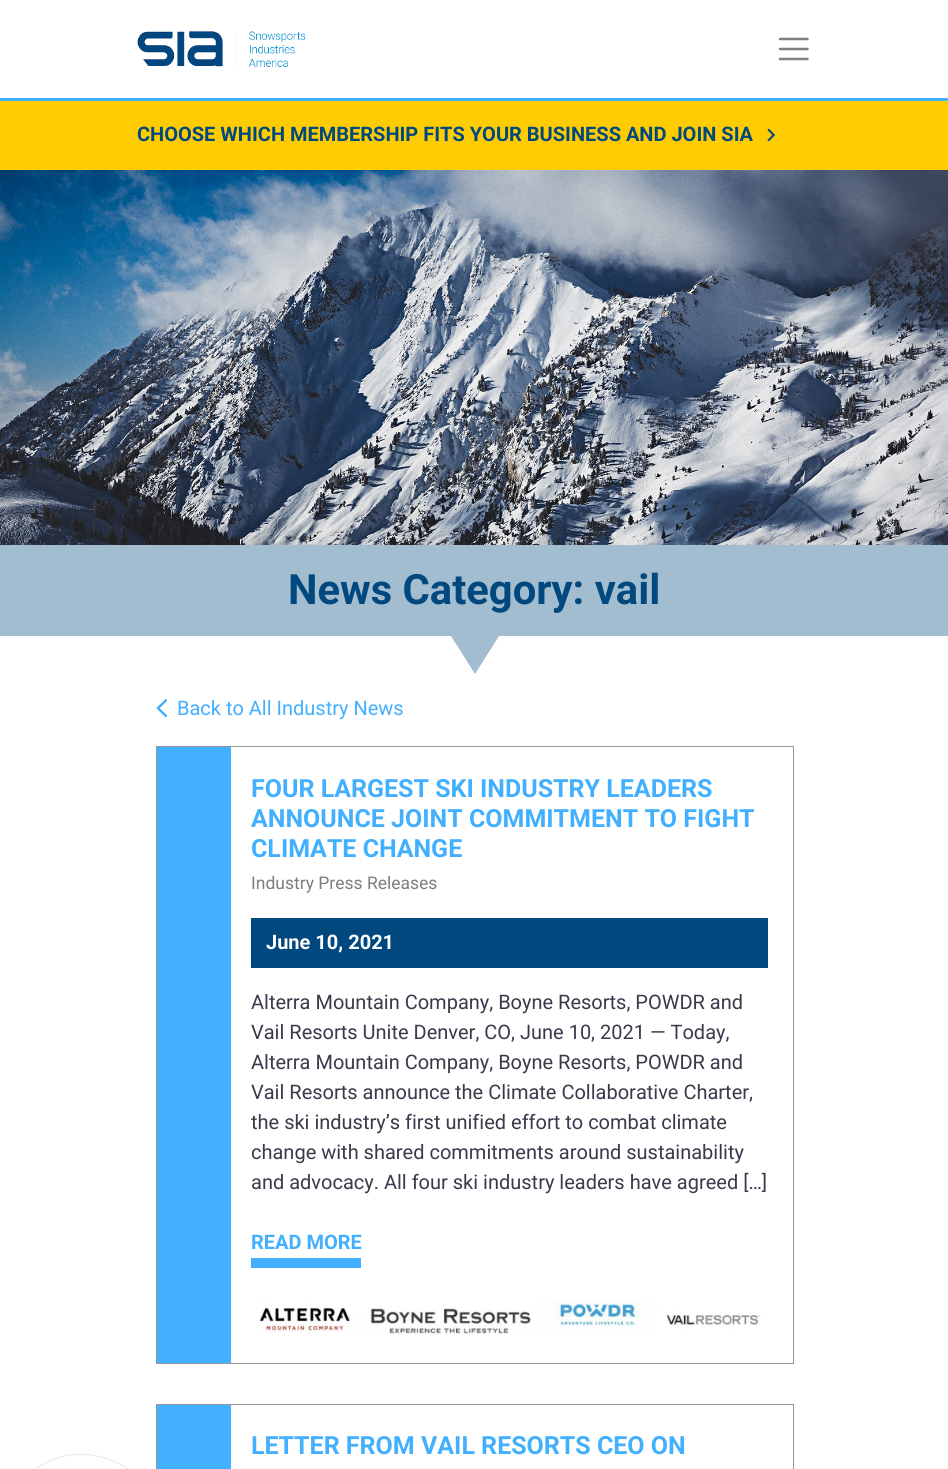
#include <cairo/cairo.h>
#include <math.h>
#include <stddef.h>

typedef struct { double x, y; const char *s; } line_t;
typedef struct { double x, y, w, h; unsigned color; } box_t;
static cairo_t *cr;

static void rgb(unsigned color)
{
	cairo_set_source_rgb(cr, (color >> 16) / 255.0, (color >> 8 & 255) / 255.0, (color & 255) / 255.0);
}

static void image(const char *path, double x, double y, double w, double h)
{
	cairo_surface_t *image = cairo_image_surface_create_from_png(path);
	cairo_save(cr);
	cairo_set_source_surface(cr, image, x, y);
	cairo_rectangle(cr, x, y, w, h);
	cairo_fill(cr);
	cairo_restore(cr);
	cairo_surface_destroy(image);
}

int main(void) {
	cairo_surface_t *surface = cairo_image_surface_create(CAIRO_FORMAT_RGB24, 948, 1469);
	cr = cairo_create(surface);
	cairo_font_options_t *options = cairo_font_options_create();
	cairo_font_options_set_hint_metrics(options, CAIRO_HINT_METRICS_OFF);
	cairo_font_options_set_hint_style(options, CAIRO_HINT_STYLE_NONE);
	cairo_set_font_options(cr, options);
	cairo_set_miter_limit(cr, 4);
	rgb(0xffffff);
	cairo_paint(cr);
	image("img/1.png", 35, 1454, 94, 15);
	rgb(0x42afff);
	cairo_rectangle(cr, 0, 98, 948, 3);
	cairo_fill(cr);
	image("img/2.png", 137, 31, 169, 37);
	cairo_new_path(cr);
	cairo_move_to(cr, 780, 39);
	cairo_line_to(cr, 807.5, 39);
	cairo_move_to(cr, 780, 49);
	cairo_line_to(cr, 807.5, 49);
	cairo_move_to(cr, 780, 59);
	cairo_line_to(cr, 807.5, 59);
	rgb(0x808080);
	cairo_set_line_width(cr, 2.5);
	cairo_set_line_cap(cr, CAIRO_LINE_CAP_ROUND);
	cairo_stroke(cr);
	rgb(0xffcc02);
	cairo_rectangle(cr, 0, 101, 948, 69);
	cairo_fill(cr);
	image("img/3.png", 767, 128, 8, 14);
	image("img/4.png", 0, 170, 948, 375);
	rgb(0xa2bdd0);
	cairo_rectangle(cr, 0, 545, 948, 91);
	cairo_fill(cr);
	cairo_new_path(cr);
	cairo_move_to(cr, 451, 636);
	cairo_line_to(cr, 499, 636);
	cairo_line_to(cr, 475, 674);
	cairo_close_path(cr);
	cairo_fill(cr);
	image("img/5.png", 156, 699, 12, 19);
	{
		static const box_t items[] = {
			{157, 747, 74, 616, 0x42afff},
			{156, 746, 638, 1, 0x979797},
			{793, 746, 1, 618, 0x979797},
			{156, 1363, 638, 1, 0x979797},
			{156, 746, 1, 618, 0x979797},
			{251, 918, 517, 50, 0x00487d},
			{251, 1258, 110, 10, 0x42afff},
		};
		for (size_t i = 0; i < sizeof items / sizeof *items; i++) {
			rgb(items[i].color);
			cairo_rectangle(cr, items[i].x, items[i].y, items[i].w, items[i].h);
			cairo_fill(cr);
		}
	}
	image("img/6.png", 259, 1301, 502, 34);
	{
		static const box_t items[] = {
			{157, 1405, 74, 64, 0x42afff},
			{156, 1404, 638, 1, 0x979797},
			{156, 1404, 1, 65, 0x979797},
			{793, 1404, 1, 65, 0x979797},
		};
		for (size_t i = 0; i < sizeof items / sizeof *items; i++) {
			rgb(items[i].color);
			cairo_rectangle(cr, items[i].x, items[i].y, items[i].w, items[i].h);
			cairo_fill(cr);
		}
	}
	cairo_select_font_face(cr, "Roboto", CAIRO_FONT_SLANT_NORMAL, CAIRO_FONT_WEIGHT_BOLD);
	cairo_set_font_size(cr, 20);
	rgb(0x00487d);
	cairo_move_to(cr, 137, 141);
	cairo_show_text(cr, "CHOOSE WHICH MEMBERSHIP FITS YOUR BUSINESS AND JOIN SIA");
	cairo_set_font_size(cr, 41.75);
	cairo_move_to(cr, 288, 604);
	cairo_show_text(cr, "News Category: vail");
	cairo_select_font_face(cr, "Roboto", CAIRO_FONT_SLANT_NORMAL, CAIRO_FONT_WEIGHT_NORMAL);
	cairo_set_font_size(cr, 20);
	rgb(0x42afff);
	cairo_move_to(cr, 177, 715);
	cairo_show_text(cr, "Back to All Industry News");
	cairo_select_font_face(cr, "Roboto", CAIRO_FONT_SLANT_NORMAL, CAIRO_FONT_WEIGHT_BOLD);
	cairo_set_font_size(cr, 25);
	{
		static const line_t items[] = {
			{251, 797, "FOUR LARGEST SKI INDUSTRY LEADERS"},
			{251, 827, "ANNOUNCE JOINT COMMITMENT TO FIGHT"},
			{251, 857, "CLIMATE CHANGE"},
		};
		for (size_t i = 0; i < sizeof items / sizeof *items; i++) {
			cairo_move_to(cr, items[i].x, items[i].y);
			cairo_show_text(cr, items[i].s);
		}
	}
	cairo_select_font_face(cr, "Roboto", CAIRO_FONT_SLANT_NORMAL, CAIRO_FONT_WEIGHT_NORMAL);
	cairo_set_font_size(cr, 17.5);
	rgb(0x7b7e7f);
	cairo_move_to(cr, 251, 889);
	cairo_show_text(cr, "Industry Press Releases");
	cairo_select_font_face(cr, "Roboto", CAIRO_FONT_SLANT_NORMAL, CAIRO_FONT_WEIGHT_BOLD);
	cairo_set_font_size(cr, 20);
	rgb(0xffffff);
	cairo_move_to(cr, 266, 949);
	cairo_show_text(cr, "June 10, 2021");
	cairo_select_font_face(cr, "Roboto", CAIRO_FONT_SLANT_NORMAL, CAIRO_FONT_WEIGHT_NORMAL);
	rgb(0x3b394a);
	{
		static const line_t items[] = {
			{251, 1009, "Alterra Mountain Company, Boyne Resorts, POWDR and"},
			{251, 1039, "Vail Resorts Unite Denver, CO, June 10, 2021 — Today,"},
			{251, 1069, "Alterra Mountain Company, Boyne Resorts, POWDR and"},
			{251, 1099, "Vail Resorts announce the Climate Collaborative Charter,"},
			{251, 1129, "the ski industry’s first unified effort to combat climate"},
			{251, 1159, "change with shared commitments around sustainability"},
			{251, 1189, "and advocacy. All four ski industry leaders have agreed […]"},
		};
		for (size_t i = 0; i < sizeof items / sizeof *items; i++) {
			cairo_move_to(cr, items[i].x, items[i].y);
			cairo_show_text(cr, items[i].s);
		}
	}
	cairo_select_font_face(cr, "Roboto", CAIRO_FONT_SLANT_NORMAL, CAIRO_FONT_WEIGHT_BOLD);
	rgb(0x42afff);
	cairo_move_to(cr, 251, 1249);
	cairo_show_text(cr, "READ MORE");
	cairo_set_font_size(cr, 25);
	cairo_move_to(cr, 251, 1454);
	cairo_show_text(cr, "LETTER FROM VAIL RESORTS CEO ON");
	cairo_surface_write_to_png(surface, "page.png");
	cairo_font_options_destroy(options);
	cairo_destroy(cr);
	cairo_surface_destroy(surface);
	return 0;
}
